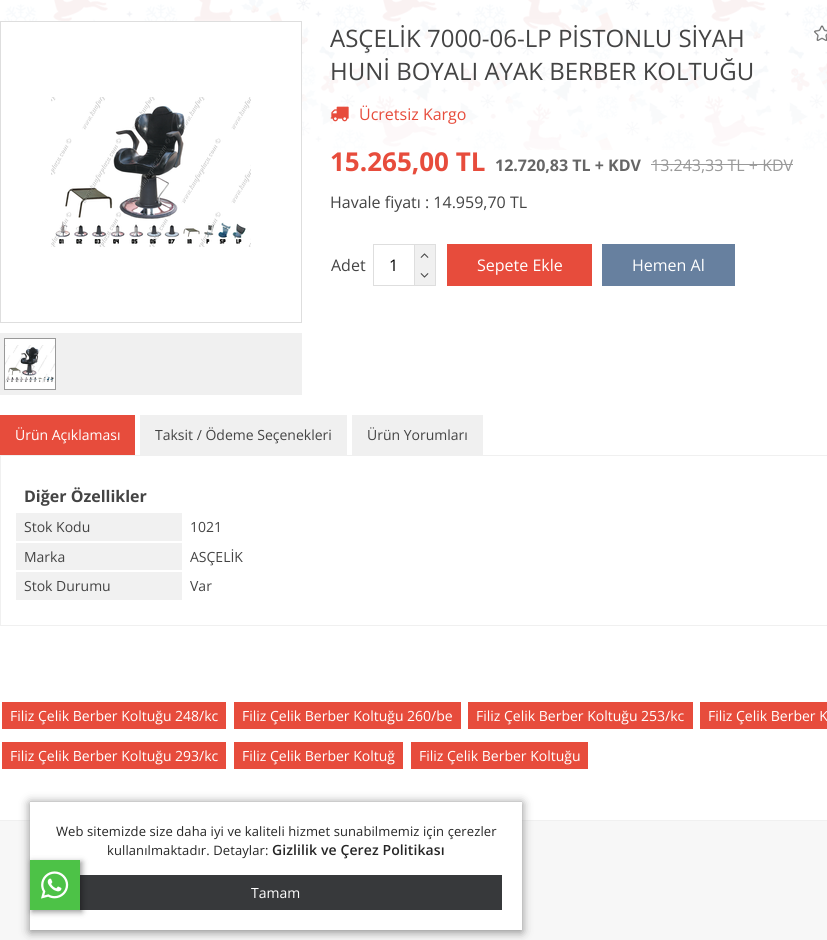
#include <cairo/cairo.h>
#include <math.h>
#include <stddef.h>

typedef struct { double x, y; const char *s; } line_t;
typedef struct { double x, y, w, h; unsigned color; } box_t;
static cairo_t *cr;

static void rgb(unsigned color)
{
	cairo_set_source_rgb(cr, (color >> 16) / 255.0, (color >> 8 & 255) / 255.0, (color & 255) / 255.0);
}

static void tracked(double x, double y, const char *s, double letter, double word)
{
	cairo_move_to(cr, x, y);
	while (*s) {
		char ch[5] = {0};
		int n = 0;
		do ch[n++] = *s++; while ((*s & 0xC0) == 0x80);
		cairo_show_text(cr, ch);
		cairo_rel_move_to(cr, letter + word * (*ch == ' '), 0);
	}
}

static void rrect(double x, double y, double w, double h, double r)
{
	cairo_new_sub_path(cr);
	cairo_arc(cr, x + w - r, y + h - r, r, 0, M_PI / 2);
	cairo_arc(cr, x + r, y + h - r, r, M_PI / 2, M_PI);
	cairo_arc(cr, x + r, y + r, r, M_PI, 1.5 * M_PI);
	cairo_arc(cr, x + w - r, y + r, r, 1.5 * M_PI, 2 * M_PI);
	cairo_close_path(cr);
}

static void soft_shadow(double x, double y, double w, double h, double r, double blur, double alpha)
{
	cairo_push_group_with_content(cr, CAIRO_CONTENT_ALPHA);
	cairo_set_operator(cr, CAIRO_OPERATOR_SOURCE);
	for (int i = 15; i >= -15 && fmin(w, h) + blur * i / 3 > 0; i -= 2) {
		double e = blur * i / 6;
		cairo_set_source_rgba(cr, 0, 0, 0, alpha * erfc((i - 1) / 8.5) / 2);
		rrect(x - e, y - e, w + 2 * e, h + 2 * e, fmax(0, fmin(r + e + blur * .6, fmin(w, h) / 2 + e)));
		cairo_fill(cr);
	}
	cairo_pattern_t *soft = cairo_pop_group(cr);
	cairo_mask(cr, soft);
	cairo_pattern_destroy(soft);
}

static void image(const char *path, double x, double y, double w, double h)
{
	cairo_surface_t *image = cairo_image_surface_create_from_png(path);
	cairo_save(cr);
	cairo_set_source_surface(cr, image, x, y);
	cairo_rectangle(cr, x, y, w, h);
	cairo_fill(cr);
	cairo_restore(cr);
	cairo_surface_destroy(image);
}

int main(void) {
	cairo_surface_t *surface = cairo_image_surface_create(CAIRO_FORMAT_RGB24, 827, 940);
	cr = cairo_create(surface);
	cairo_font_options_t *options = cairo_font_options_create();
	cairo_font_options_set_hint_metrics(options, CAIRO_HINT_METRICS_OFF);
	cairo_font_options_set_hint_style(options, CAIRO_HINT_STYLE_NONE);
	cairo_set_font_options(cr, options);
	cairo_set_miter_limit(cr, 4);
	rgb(0xffffff);
	cairo_paint(cr);
	image("img/1.png", 4, 0, 823, 150);
	rgb(0xffffff);
	cairo_rectangle(cr, 4, 22, 297, 128);
	cairo_fill(cr);
	cairo_rectangle(cr, 0.5, 21.5, 301, 301);
	rgb(0xdedede);
	cairo_set_line_width(cr, 1);
	cairo_stroke(cr);
	image("img/2.png", 51, 97, 200, 150);
	rgb(0xf0f0f0);
	cairo_rectangle(cr, 0, 333, 302, 62);
	cairo_fill(cr);
	cairo_rectangle(cr, 4.5, 338.5, 51, 51);
	rgb(0x999999);
	cairo_stroke(cr);
	image("img/3.png", 5, 339, 50, 50);
	image("img/4.png", 814, 25, 13, 16);
	image("img/5.png", 330, 106, 19, 16);
	cairo_rectangle(cr, 651, 164, 142, 1);
	cairo_fill(cr);
	cairo_rectangle(cr, 373.5, 244.5, 41, 41);
	rgb(0xdedede);
	cairo_stroke(cr);
	{
		static const box_t items[] = {
			{415, 244, 21, 1, 0xdedede},
			{435, 244, 1, 42, 0xdedede},
			{415, 285, 21, 1, 0xdedede},
			{415, 245, 20, 40, 0xf0f0f0},
		};
		for (size_t i = 0; i < sizeof items / sizeof *items; i++) {
			rgb(items[i].color);
			cairo_rectangle(cr, items[i].x, items[i].y, items[i].w, items[i].h);
			cairo_fill(cr);
		}
	}
	image("img/6.png", 420, 253, 9, 5);
	image("img/7.png", 420, 273, 9, 5);
	{
		static const box_t items[] = {
			{447, 244, 145, 42, 0xe74c3c},
			{602, 244, 133, 42, 0x67809f},
			{0, 415, 135, 40, 0xe74c3c},
			{140, 415, 207, 40, 0xf0f0f0},
			{352, 415, 131, 40, 0xf0f0f0},
		};
		for (size_t i = 0; i < sizeof items / sizeof *items; i++) {
			rgb(items[i].color);
			cairo_rectangle(cr, items[i].x, items[i].y, items[i].w, items[i].h);
			cairo_fill(cr);
		}
	}
	cairo_rectangle(cr, 0.5, 455.5, 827, 170);
	cairo_stroke(cr);
	{
		static const box_t items[] = {
			{16, 513, 166, 28, 0xf1f1f1},
			{16, 543, 166, 27, 0xf1f1f1},
			{16, 572, 166, 28, 0xf1f1f1},
			{2, 702, 224, 27, 0xe74c3c},
			{234, 702, 227, 27, 0xe74c3c},
			{468, 702, 225, 27, 0xe74c3c},
			{700, 702, 127, 27, 0xe74c3c},
			{2, 742, 224, 27, 0xe74c3c},
			{234, 742, 169, 27, 0xe74c3c},
			{411, 742, 177, 27, 0xe74c3c},
			{0, 821, 827, 119, 0xf7f7f7},
			{0, 820, 827, 1, 0xf0f0f0},
		};
		for (size_t i = 0; i < sizeof items / sizeof *items; i++) {
			rgb(items[i].color);
			cairo_rectangle(cr, items[i].x, items[i].y, items[i].w, items[i].h);
			cairo_fill(cr);
		}
	}
	rgb(0x888888);
	soft_shadow(30, 803, 492, 129, 0, 5, 1);
	{
		static const box_t items[] = {
			{30, 802, 492, 128, 0xffffff},
			{30, 801, 492, 1, 0xcccccc},
			{80, 875, 422, 35, 0x37393b},
		};
		for (size_t i = 0; i < sizeof items / sizeof *items; i++) {
			rgb(items[i].color);
			cairo_rectangle(cr, items[i].x, items[i].y, items[i].w, items[i].h);
			cairo_fill(cr);
		}
	}
	rgb(0x000000);
	soft_shadow(32, 862, 50, 50, 0, 3, 0.4);
	rgb(0x4dc247);
	cairo_rectangle(cr, 30, 860, 50, 50);
	cairo_fill(cr);
	image("img/8.png", 41, 871, 28, 28);
	cairo_select_font_face(cr, "Open Sans", CAIRO_FONT_SLANT_NORMAL, CAIRO_FONT_WEIGHT_NORMAL);
	cairo_set_font_size(cr, 24);
	rgb(0x444444);
	cairo_move_to(cr, 330, 47);
	cairo_show_text(cr, "ASÇELİK 7000-06-LP PİSTONLU SİYAH");
	cairo_move_to(cr, 330, 80);
	cairo_show_text(cr, "HUNİ BOYALI AYAK BERBER KOLTUĞU");
	cairo_set_font_size(cr, 16);
	rgb(0xe74c3c);
	cairo_move_to(cr, 359, 120);
	cairo_show_text(cr, "Ücretsiz Kargo");
	cairo_select_font_face(cr, "Open Sans", CAIRO_FONT_SLANT_NORMAL, CAIRO_FONT_WEIGHT_BOLD);
	cairo_set_font_size(cr, 26);
	cairo_move_to(cr, 330, 171);
	cairo_show_text(cr, "15.265,00 TL");
	cairo_set_font_size(cr, 16);
	rgb(0x666666);
	cairo_move_to(cr, 495, 171);
	cairo_show_text(cr, "12.720,83 TL + KDV");
	cairo_select_font_face(cr, "Open Sans", CAIRO_FONT_SLANT_NORMAL, CAIRO_FONT_WEIGHT_NORMAL);
	rgb(0x999999);
	cairo_move_to(cr, 651, 171);
	cairo_show_text(cr, "13.243,33 TL + KDV");
	rgb(0x444444);
	cairo_move_to(cr, 330, 208);
	cairo_show_text(cr, "Havale fiyatı : 14.959,70 TL");
	cairo_move_to(cr, 331, 271);
	cairo_show_text(cr, "Adet");
	rgb(0x000000);
	cairo_move_to(cr, 389, 271);
	cairo_show_text(cr, "1");
	rgb(0xffffff);
	cairo_move_to(cr, 477, 271);
	cairo_show_text(cr, "Sepete Ekle");
	cairo_move_to(cr, 632, 271);
	cairo_show_text(cr, "Hemen Al");
	cairo_set_font_size(cr, 14);
	cairo_move_to(cr, 15, 440);
	cairo_show_text(cr, "Ürün Açıklaması");
	rgb(0x444444);
	cairo_move_to(cr, 155, 440);
	cairo_show_text(cr, "Taksit / Ödeme Seçenekleri");
	cairo_move_to(cr, 367, 440);
	cairo_show_text(cr, "Ürün Yorumları");
	cairo_select_font_face(cr, "Open Sans", CAIRO_FONT_SLANT_NORMAL, CAIRO_FONT_WEIGHT_BOLD);
	cairo_set_font_size(cr, 16);
	cairo_move_to(cr, 24, 502);
	cairo_show_text(cr, "Diğer Özellikler");
	cairo_select_font_face(cr, "Open Sans", CAIRO_FONT_SLANT_NORMAL, CAIRO_FONT_WEIGHT_NORMAL);
	cairo_set_font_size(cr, 14);
	{
		static const line_t items[] = {
			{24, 532, "Stok Kodu"},
			{190, 532, "1021"},
			{24, 562, "Marka"},
			{190, 562, "ASÇELİK"},
			{24, 591, "Stok Durumu"},
			{190, 591, "Var"},
		};
		for (size_t i = 0; i < sizeof items / sizeof *items; i++) {
			cairo_move_to(cr, items[i].x, items[i].y);
			cairo_show_text(cr, items[i].s);
		}
	}
	rgb(0xffffff);
	{
		static const line_t items[] = {
			{10, 721, "Filiz Çelik Berber Koltuğu 248/kc"},
			{242, 721, "Filiz Çelik Berber Koltuğu 260/be"},
			{476, 721, "Filiz Çelik Berber Koltuğu 253/kc"},
			{708, 721, "Filiz Çelik Berber K"},
			{10, 761, "Filiz Çelik Berber Koltuğu 293/kc"},
			{242, 761, "Filiz Çelik Berber Koltuğ"},
			{419, 761, "Filiz Çelik Berber Koltuğu"},
		};
		for (size_t i = 0; i < sizeof items / sizeof *items; i++) {
			cairo_move_to(cr, items[i].x, items[i].y);
			cairo_show_text(cr, items[i].s);
		}
	}
	cairo_set_font_size(cr, 13);
	rgb(0x262626);
	tracked(56, 836, "Web sitemizde size daha iyi ve kaliteli hizmet sunabilmemiz için çerezler", 0.1, 0);
	tracked(107, 855, "kullanılmaktadır. Detaylar:", 0.1, 0);
	cairo_select_font_face(cr, "Open Sans SemiBold", CAIRO_FONT_SLANT_NORMAL, CAIRO_FONT_WEIGHT_NORMAL);
	cairo_set_font_size(cr, 14);
	tracked(272, 855, "Gizlilik ve Çerez Politikası", 0.1, 0);
	cairo_select_font_face(cr, "Open Sans", CAIRO_FONT_SLANT_NORMAL, CAIRO_FONT_WEIGHT_NORMAL);
	rgb(0xffffff);
	cairo_move_to(cr, 251, 898);
	cairo_show_text(cr, "Tamam");
	cairo_surface_write_to_png(surface, "page.png");
	cairo_font_options_destroy(options);
	cairo_destroy(cr);
	cairo_surface_destroy(surface);
	return 0;
}
